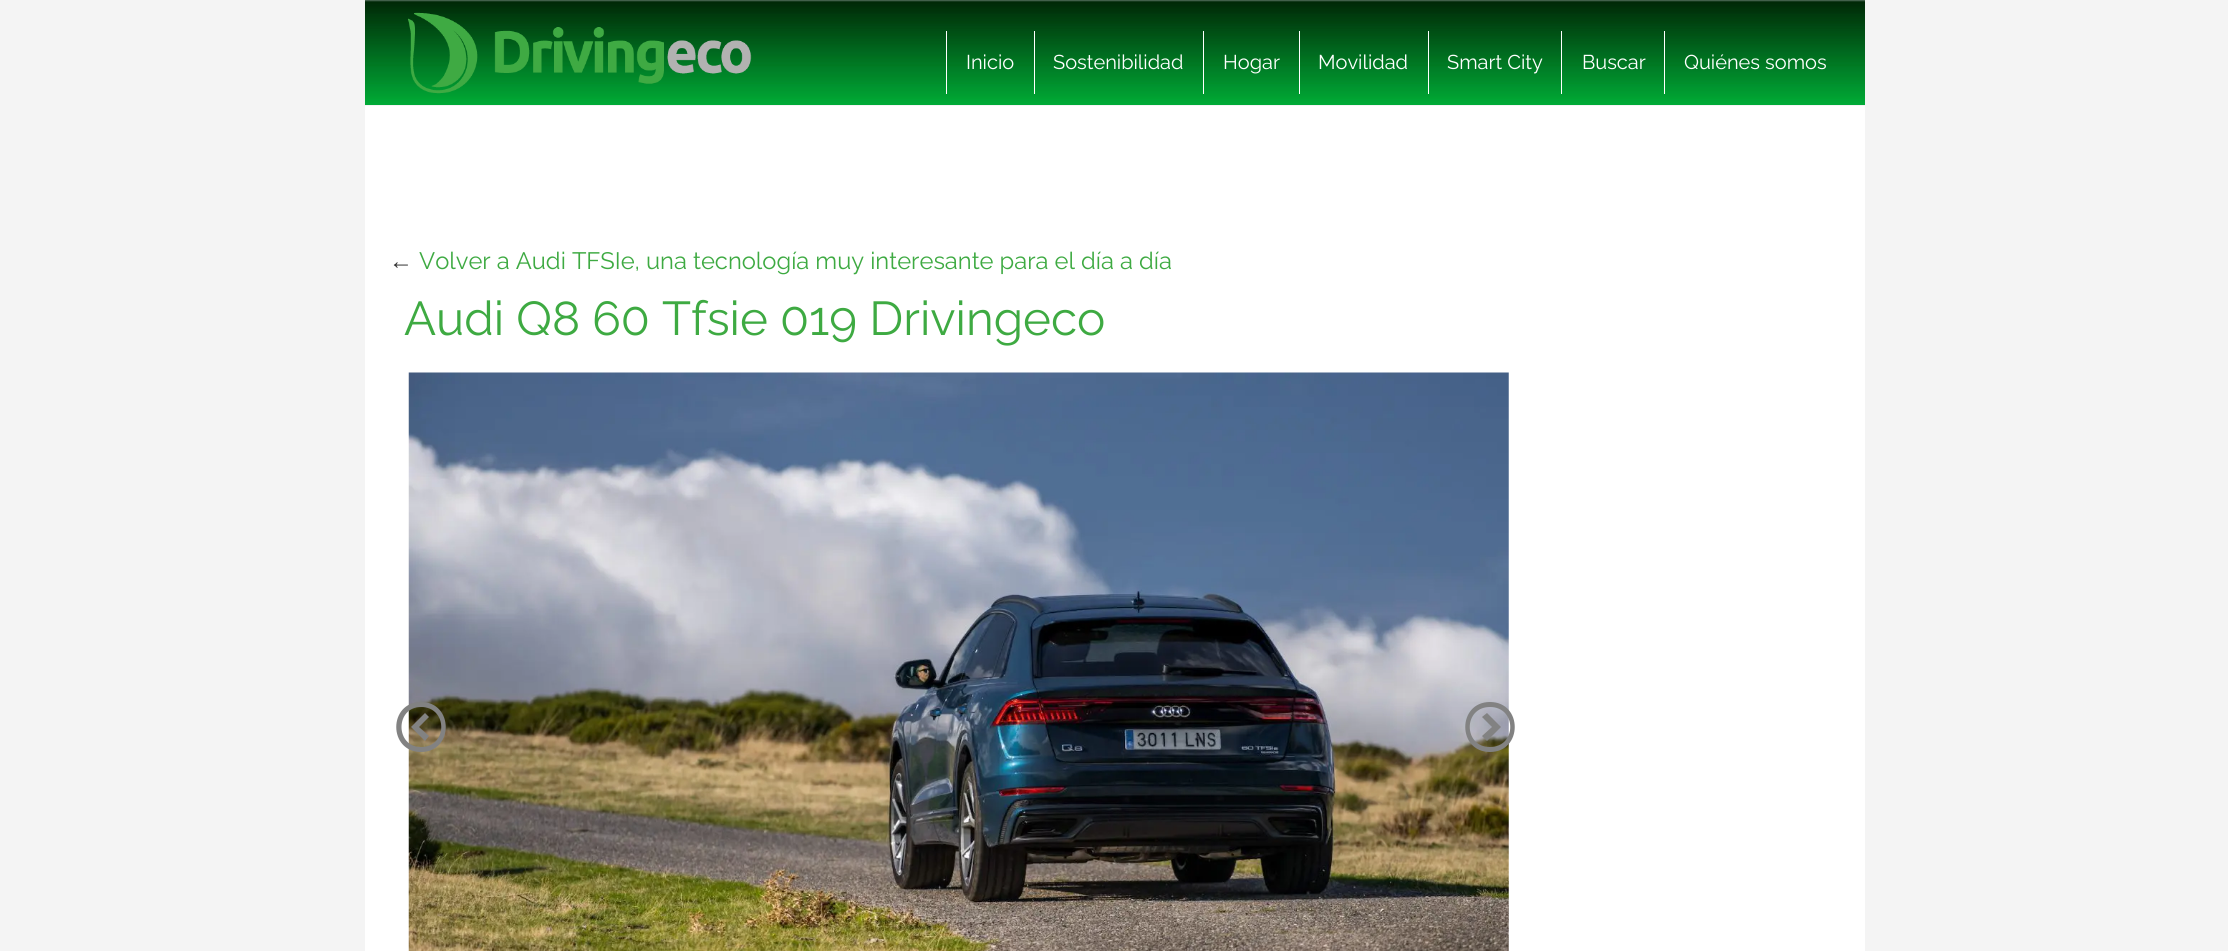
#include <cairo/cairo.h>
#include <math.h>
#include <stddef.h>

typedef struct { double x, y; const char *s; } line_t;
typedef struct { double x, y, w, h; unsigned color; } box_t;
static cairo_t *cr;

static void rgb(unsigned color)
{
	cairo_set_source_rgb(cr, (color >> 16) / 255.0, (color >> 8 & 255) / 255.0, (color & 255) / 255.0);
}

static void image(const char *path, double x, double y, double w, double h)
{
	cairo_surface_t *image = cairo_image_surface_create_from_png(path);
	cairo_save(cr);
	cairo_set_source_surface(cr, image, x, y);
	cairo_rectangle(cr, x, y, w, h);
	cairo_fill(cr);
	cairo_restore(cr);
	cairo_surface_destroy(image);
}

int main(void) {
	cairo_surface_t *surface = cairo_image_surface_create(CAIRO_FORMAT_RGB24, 2228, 951);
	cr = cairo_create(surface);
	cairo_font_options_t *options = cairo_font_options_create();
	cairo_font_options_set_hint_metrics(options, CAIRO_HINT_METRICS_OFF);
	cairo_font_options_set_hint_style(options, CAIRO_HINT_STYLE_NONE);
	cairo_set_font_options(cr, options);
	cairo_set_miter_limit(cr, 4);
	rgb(0xf4f4f4);
	cairo_paint(cr);
	image("img/1.png", 365, 0, 1500, 105);
	image("img/2.png", 408, 12, 344, 82);
	{
		static const box_t items[] = {
			{946, 31, 1, 63, 0xffffff},
			{1034, 31, 1, 63, 0xffffff},
			{1203, 31, 1, 63, 0xffffff},
			{1299, 31, 1, 63, 0xffffff},
			{1428, 31, 1, 63, 0xffffff},
			{1561, 31, 1, 63, 0xffffff},
			{1664, 31, 1, 63, 0xffffff},
			{365, 106, 1500, 845, 0xffffff},
		};
		for (size_t i = 0; i < sizeof items / sizeof *items; i++) {
			rgb(items[i].color);
			cairo_rectangle(cr, items[i].x, items[i].y, items[i].w, items[i].h);
			cairo_fill(cr);
		}
	}
	image("img/3.png", 408, 372, 1101, 579);
	rgb(0x828282);
	cairo_new_path(cr);
	cairo_move_to(cr, 421, 752);
	cairo_curve_to(cr, 454, 752, 454, 702, 421, 702);
	cairo_curve_to(cr, 388, 702, 388, 752, 421, 752);
	cairo_close_path(cr);
	cairo_move_to(cr, 421, 707);
	cairo_curve_to(cr, 448, 707, 448, 747, 421, 747);
	cairo_curve_to(cr, 395, 747, 395, 707, 421, 707);
	cairo_close_path(cr);
	cairo_move_to(cr, 429, 717);
	cairo_line_to(cr, 425, 713);
	cairo_line_to(cr, 411, 727);
	cairo_line_to(cr, 425, 741);
	cairo_line_to(cr, 429, 736);
	cairo_line_to(cr, 419, 727);
	cairo_close_path(cr);
	cairo_fill(cr);
	cairo_new_path(cr);
	cairo_move_to(cr, 1490, 702);
	cairo_curve_to(cr, 1457, 702, 1457, 752, 1490, 752);
	cairo_curve_to(cr, 1523, 752, 1523, 702, 1490, 702);
	cairo_close_path(cr);
	cairo_move_to(cr, 1490, 747);
	cairo_curve_to(cr, 1463, 747, 1463, 707, 1490, 707);
	cairo_curve_to(cr, 1517, 707, 1517, 747, 1490, 747);
	cairo_close_path(cr);
	cairo_move_to(cr, 1482, 736);
	cairo_line_to(cr, 1487, 741);
	cairo_line_to(cr, 1501, 727);
	cairo_line_to(cr, 1487, 713);
	cairo_line_to(cr, 1482, 717);
	cairo_line_to(cr, 1492, 727);
	cairo_close_path(cr);
	cairo_fill(cr);
	cairo_select_font_face(cr, "Raleway", CAIRO_FONT_SLANT_NORMAL, CAIRO_FONT_WEIGHT_NORMAL);
	cairo_set_font_size(cr, 20);
	rgb(0xffffff);
	{
		static const line_t items[] = {
			{966, 69, "Inicio"},
			{1053, 69, "Sostenibilidad"},
			{1223, 69, "Hogar"},
			{1318, 69, "Movilidad"},
			{1447, 69, "Smart City"},
			{1582, 69, "Buscar"},
			{1684, 69, "Quiénes somos"},
		};
		for (size_t i = 0; i < sizeof items / sizeof *items; i++) {
			cairo_move_to(cr, items[i].x, items[i].y);
			cairo_show_text(cr, items[i].s);
		}
	}
	cairo_select_font_face(cr, "Liberation Sans", CAIRO_FONT_SLANT_NORMAL, CAIRO_FONT_WEIGHT_NORMAL);
	cairo_set_font_size(cr, 23.75);
	rgb(0x333333);
	cairo_move_to(cr, 389, 269);
	cairo_show_text(cr, "←");
	cairo_select_font_face(cr, "Raleway", CAIRO_FONT_SLANT_NORMAL, CAIRO_FONT_WEIGHT_NORMAL);
	rgb(0x3eaa42);
	cairo_move_to(cr, 419, 269);
	cairo_show_text(cr, "Volver a Audi TFSIe, una tecnología muy interesante para el día a día");
	cairo_set_font_size(cr, 47.5);
	cairo_move_to(cr, 404, 335);
	cairo_show_text(cr, "Audi Q8 60 Tfsie 019 Drivingeco");
	cairo_surface_write_to_png(surface, "page.png");
	cairo_font_options_destroy(options);
	cairo_destroy(cr);
	cairo_surface_destroy(surface);
	return 0;
}
